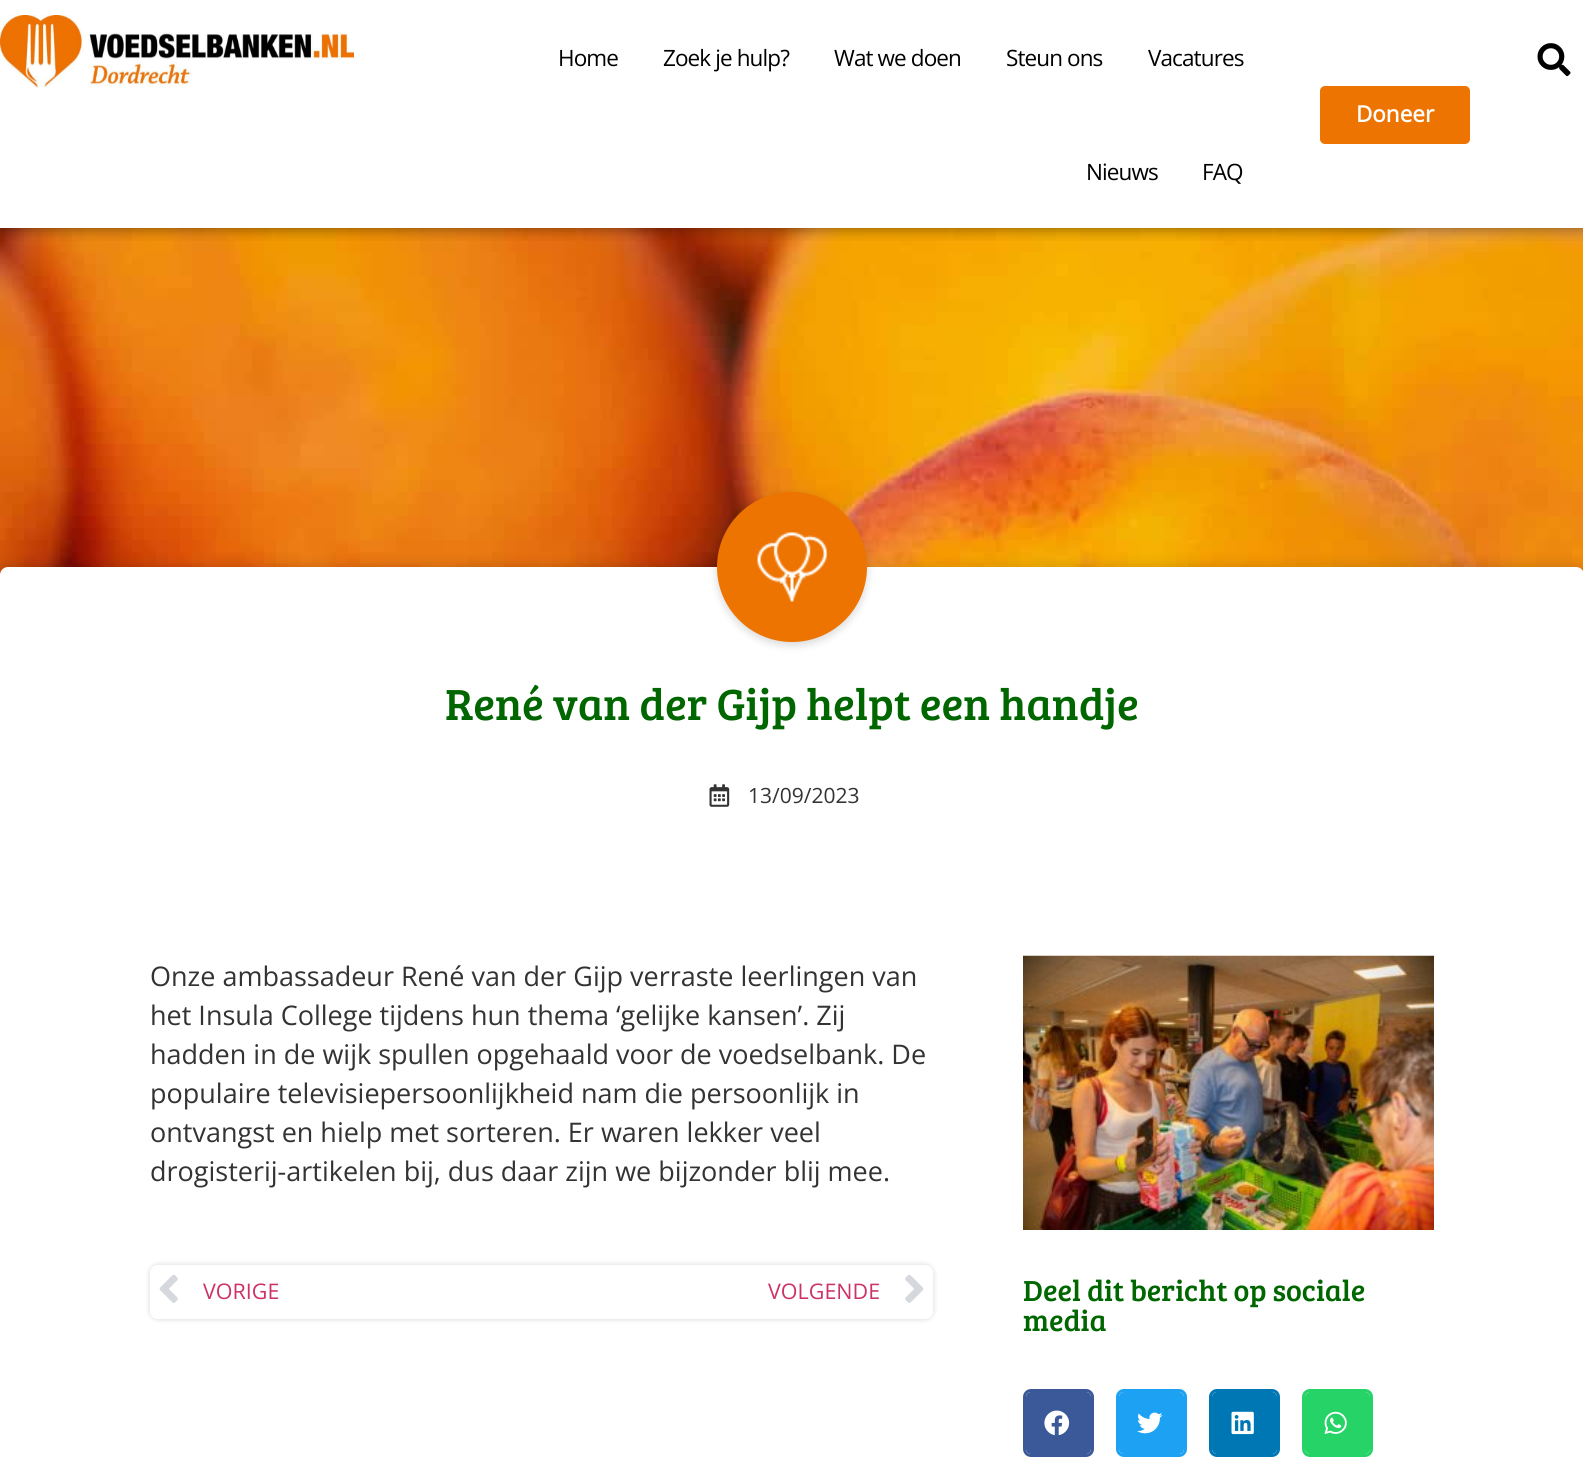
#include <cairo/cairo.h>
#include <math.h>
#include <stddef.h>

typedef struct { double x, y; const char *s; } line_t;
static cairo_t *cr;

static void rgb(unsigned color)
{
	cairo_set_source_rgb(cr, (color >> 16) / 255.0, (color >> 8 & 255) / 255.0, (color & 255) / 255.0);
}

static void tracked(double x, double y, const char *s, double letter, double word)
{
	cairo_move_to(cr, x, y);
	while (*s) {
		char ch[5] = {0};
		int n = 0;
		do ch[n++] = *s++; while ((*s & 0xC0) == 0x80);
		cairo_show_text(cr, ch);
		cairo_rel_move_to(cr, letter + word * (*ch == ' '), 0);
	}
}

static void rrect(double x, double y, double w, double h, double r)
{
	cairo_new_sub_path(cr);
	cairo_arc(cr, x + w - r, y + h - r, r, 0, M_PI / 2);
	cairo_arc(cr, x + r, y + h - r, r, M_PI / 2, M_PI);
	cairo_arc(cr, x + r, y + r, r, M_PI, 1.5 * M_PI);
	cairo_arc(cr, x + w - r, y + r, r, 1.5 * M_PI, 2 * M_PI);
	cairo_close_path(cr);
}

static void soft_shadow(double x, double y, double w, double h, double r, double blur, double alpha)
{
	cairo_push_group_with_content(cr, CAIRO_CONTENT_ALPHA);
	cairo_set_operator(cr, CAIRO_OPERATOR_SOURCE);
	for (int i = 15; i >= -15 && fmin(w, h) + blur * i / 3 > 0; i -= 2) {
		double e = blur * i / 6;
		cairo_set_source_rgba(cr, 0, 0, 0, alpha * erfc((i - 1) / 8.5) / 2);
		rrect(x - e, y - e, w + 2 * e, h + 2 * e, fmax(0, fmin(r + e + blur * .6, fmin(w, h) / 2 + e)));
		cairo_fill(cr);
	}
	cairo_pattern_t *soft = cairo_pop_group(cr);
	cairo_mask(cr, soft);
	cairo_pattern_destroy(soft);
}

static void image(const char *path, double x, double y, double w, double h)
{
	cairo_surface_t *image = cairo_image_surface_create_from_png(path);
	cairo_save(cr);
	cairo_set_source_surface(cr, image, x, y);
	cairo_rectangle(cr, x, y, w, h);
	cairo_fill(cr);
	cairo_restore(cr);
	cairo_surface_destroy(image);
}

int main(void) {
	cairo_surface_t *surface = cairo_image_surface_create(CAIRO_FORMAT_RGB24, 1583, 1462);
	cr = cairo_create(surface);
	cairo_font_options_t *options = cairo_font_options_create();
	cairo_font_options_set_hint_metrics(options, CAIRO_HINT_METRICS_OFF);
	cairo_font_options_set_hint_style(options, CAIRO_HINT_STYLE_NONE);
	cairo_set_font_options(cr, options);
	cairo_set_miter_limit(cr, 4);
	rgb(0xffffff);
	cairo_paint(cr);
	image("img/3.png", 0, 228, 1583, 347);
	cairo_save(cr);
	cairo_rectangle(cr, 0, 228, 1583, 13);
	cairo_clip(cr);
	rgb(0x000000);
	soft_shadow(0, 0, 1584, 228, 0, 7.5, 0.5);
	cairo_restore(cr);
	image("img/1.png", 0, 15, 354, 73);
	rgb(0xee7402);
	rrect(1320, 86, 150, 58, 5);
	cairo_fill(cr);
	image("img/2.png", 1537, 43, 34, 34);
	rgb(0x000000);
	soft_shadow(0, 567, 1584, 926, 8, 7.5, 0.16);
	rgb(0xffffff);
	rrect(0, 567, 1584, 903, 8);
	cairo_fill(cr);
	rgb(0x000000);
	soft_shadow(717, 495, 150, 150, 75, 4.5, 0.16);
	rgb(0xee7402);
	cairo_arc(cr, 792, 567, 75, 0, 2 * M_PI);
	cairo_fill(cr);
	image("img/4.png", 757, 532, 71, 70);
	image("img/5.png", 709, 784, 21, 23);
	cairo_save(cr);
	cairo_set_fill_rule(cr, CAIRO_FILL_RULE_EVEN_ODD);
	cairo_new_path(cr);
	cairo_move_to(cr, 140, 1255);
	cairo_line_to(cr, 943, 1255);
	cairo_line_to(cr, 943, 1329);
	cairo_line_to(cr, 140, 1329);
	cairo_close_path(cr);
	cairo_move_to(cr, 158, 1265);
	cairo_line_to(cr, 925, 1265);
	cairo_curve_to(cr, 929.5, 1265, 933, 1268.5, 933, 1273);
	cairo_line_to(cr, 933, 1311);
	cairo_curve_to(cr, 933, 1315.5, 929.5, 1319, 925, 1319);
	cairo_line_to(cr, 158, 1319);
	cairo_curve_to(cr, 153.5, 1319, 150, 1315.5, 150, 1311);
	cairo_line_to(cr, 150, 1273);
	cairo_curve_to(cr, 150, 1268.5, 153.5, 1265, 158, 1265);
	cairo_close_path(cr);
	cairo_clip(cr);
	rgb(0x000000);
	soft_shadow(150, 1265, 783, 54, 8, 3, 0.16);
	cairo_restore(cr);
	image("img/6.png", 159, 1274, 19, 29);
	image("img/7.png", 905, 1274, 19, 29);
	image("img/8.png", 1023, 955, 411, 275);
	rrect(1024.5, 1390.5, 68, 65, 6.5);
	rgb(0x3b5998);
	cairo_set_line_width(cr, 3);
	cairo_stroke(cr);
	rrect(1026, 1392, 65, 62, 5);
	cairo_fill(cr);
	image("img/9.png", 1044, 1410, 26, 26);
	rrect(1117.5, 1390.5, 68, 65, 6.5);
	rgb(0x1da1f2);
	cairo_stroke(cr);
	rrect(1119, 1392, 65, 62, 5);
	cairo_fill(cr);
	image("img/10.png", 1137, 1412, 26, 22);
	rrect(1210.5, 1390.5, 68, 65, 6.5);
	rgb(0x0077b5);
	cairo_stroke(cr);
	rrect(1212, 1392, 65, 62, 5);
	cairo_fill(cr);
	image("img/11.png", 1231, 1411, 23, 24);
	rrect(1303.5, 1390.5, 68, 65, 6.5);
	rgb(0x25d366);
	cairo_stroke(cr);
	rrect(1305, 1392, 65, 62, 5);
	cairo_fill(cr);
	image("img/12.png", 1324, 1411, 23, 23);
	cairo_select_font_face(cr, "Open Sans", CAIRO_FONT_SLANT_NORMAL, CAIRO_FONT_WEIGHT_NORMAL);
	cairo_set_font_size(cr, 22.5);
	rgb(0x000000);
	{
		static const line_t items[] = {
			{558, 66, "Home"},
			{663, 66, "Zoek je hulp?"},
			{834, 66, "Wat we doen"},
			{1006, 66, "Steun ons"},
			{1148, 66, "Vacatures"},
			{1086, 180, "Nieuws"},
			{1202, 180, "FAQ"},
		};
		for (size_t i = 0; i < sizeof items / sizeof *items; i++) {
			tracked(items[i].x, items[i].y, items[i].s, -0.9, 0);
		}
	}
	cairo_select_font_face(cr, "Open Sans", CAIRO_FONT_SLANT_NORMAL, CAIRO_FONT_WEIGHT_BOLD);
	rgb(0xffffff);
	cairo_move_to(cr, 1356, 122);
	cairo_show_text(cr, "Doneer");
	cairo_select_font_face(cr, "Bree Serif", CAIRO_FONT_SLANT_NORMAL, CAIRO_FONT_WEIGHT_NORMAL);
	cairo_set_font_size(cr, 45);
	rgb(0x006600);
	cairo_move_to(cr, 445, 720);
	cairo_show_text(cr, "René van der Gijp helpt een handje");
	cairo_select_font_face(cr, "Open Sans", CAIRO_FONT_SLANT_NORMAL, CAIRO_FONT_WEIGHT_NORMAL);
	cairo_set_font_size(cr, 21);
	rgb(0x333333);
	cairo_move_to(cr, 748, 803);
	cairo_show_text(cr, "13/09/2023");
	cairo_set_font_size(cr, 27);
	{
		static const line_t items[] = {
			{150, 986, "Onze ambassadeur René van der Gijp verraste leerlingen van"},
			{150, 1025, "het Insula College tijdens hun thema ‘gelijke kansen’. Zij"},
			{150, 1064, "hadden in de wijk spullen opgehaald voor de voedselbank. De"},
			{150, 1103, "populaire televisiepersoonlijkheid nam die persoonlijk in"},
			{150, 1142, "ontvangst en hielp met sorteren. Er waren lekker veel"},
			{150, 1181, "drogisterij-artikelen bij, dus daar zijn we bijzonder blij mee."},
		};
		for (size_t i = 0; i < sizeof items / sizeof *items; i++) {
			cairo_move_to(cr, items[i].x, items[i].y);
			cairo_show_text(cr, items[i].s);
		}
	}
	cairo_set_font_size(cr, 21.5);
	rgb(0xcc3366);
	cairo_move_to(cr, 203, 1299);
	cairo_show_text(cr, "VORIGE");
	cairo_move_to(cr, 768, 1299);
	cairo_show_text(cr, "VOLGENDE");
	cairo_select_font_face(cr, "Bree Serif", CAIRO_FONT_SLANT_NORMAL, CAIRO_FONT_WEIGHT_NORMAL);
	cairo_set_font_size(cr, 30);
	rgb(0x006600);
	cairo_move_to(cr, 1023, 1301);
	cairo_show_text(cr, "Deel dit bericht op sociale");
	cairo_move_to(cr, 1023, 1331);
	cairo_show_text(cr, "media");
	cairo_surface_write_to_png(surface, "page.png");
	cairo_font_options_destroy(options);
	cairo_destroy(cr);
	cairo_surface_destroy(surface);
	return 0;
}
